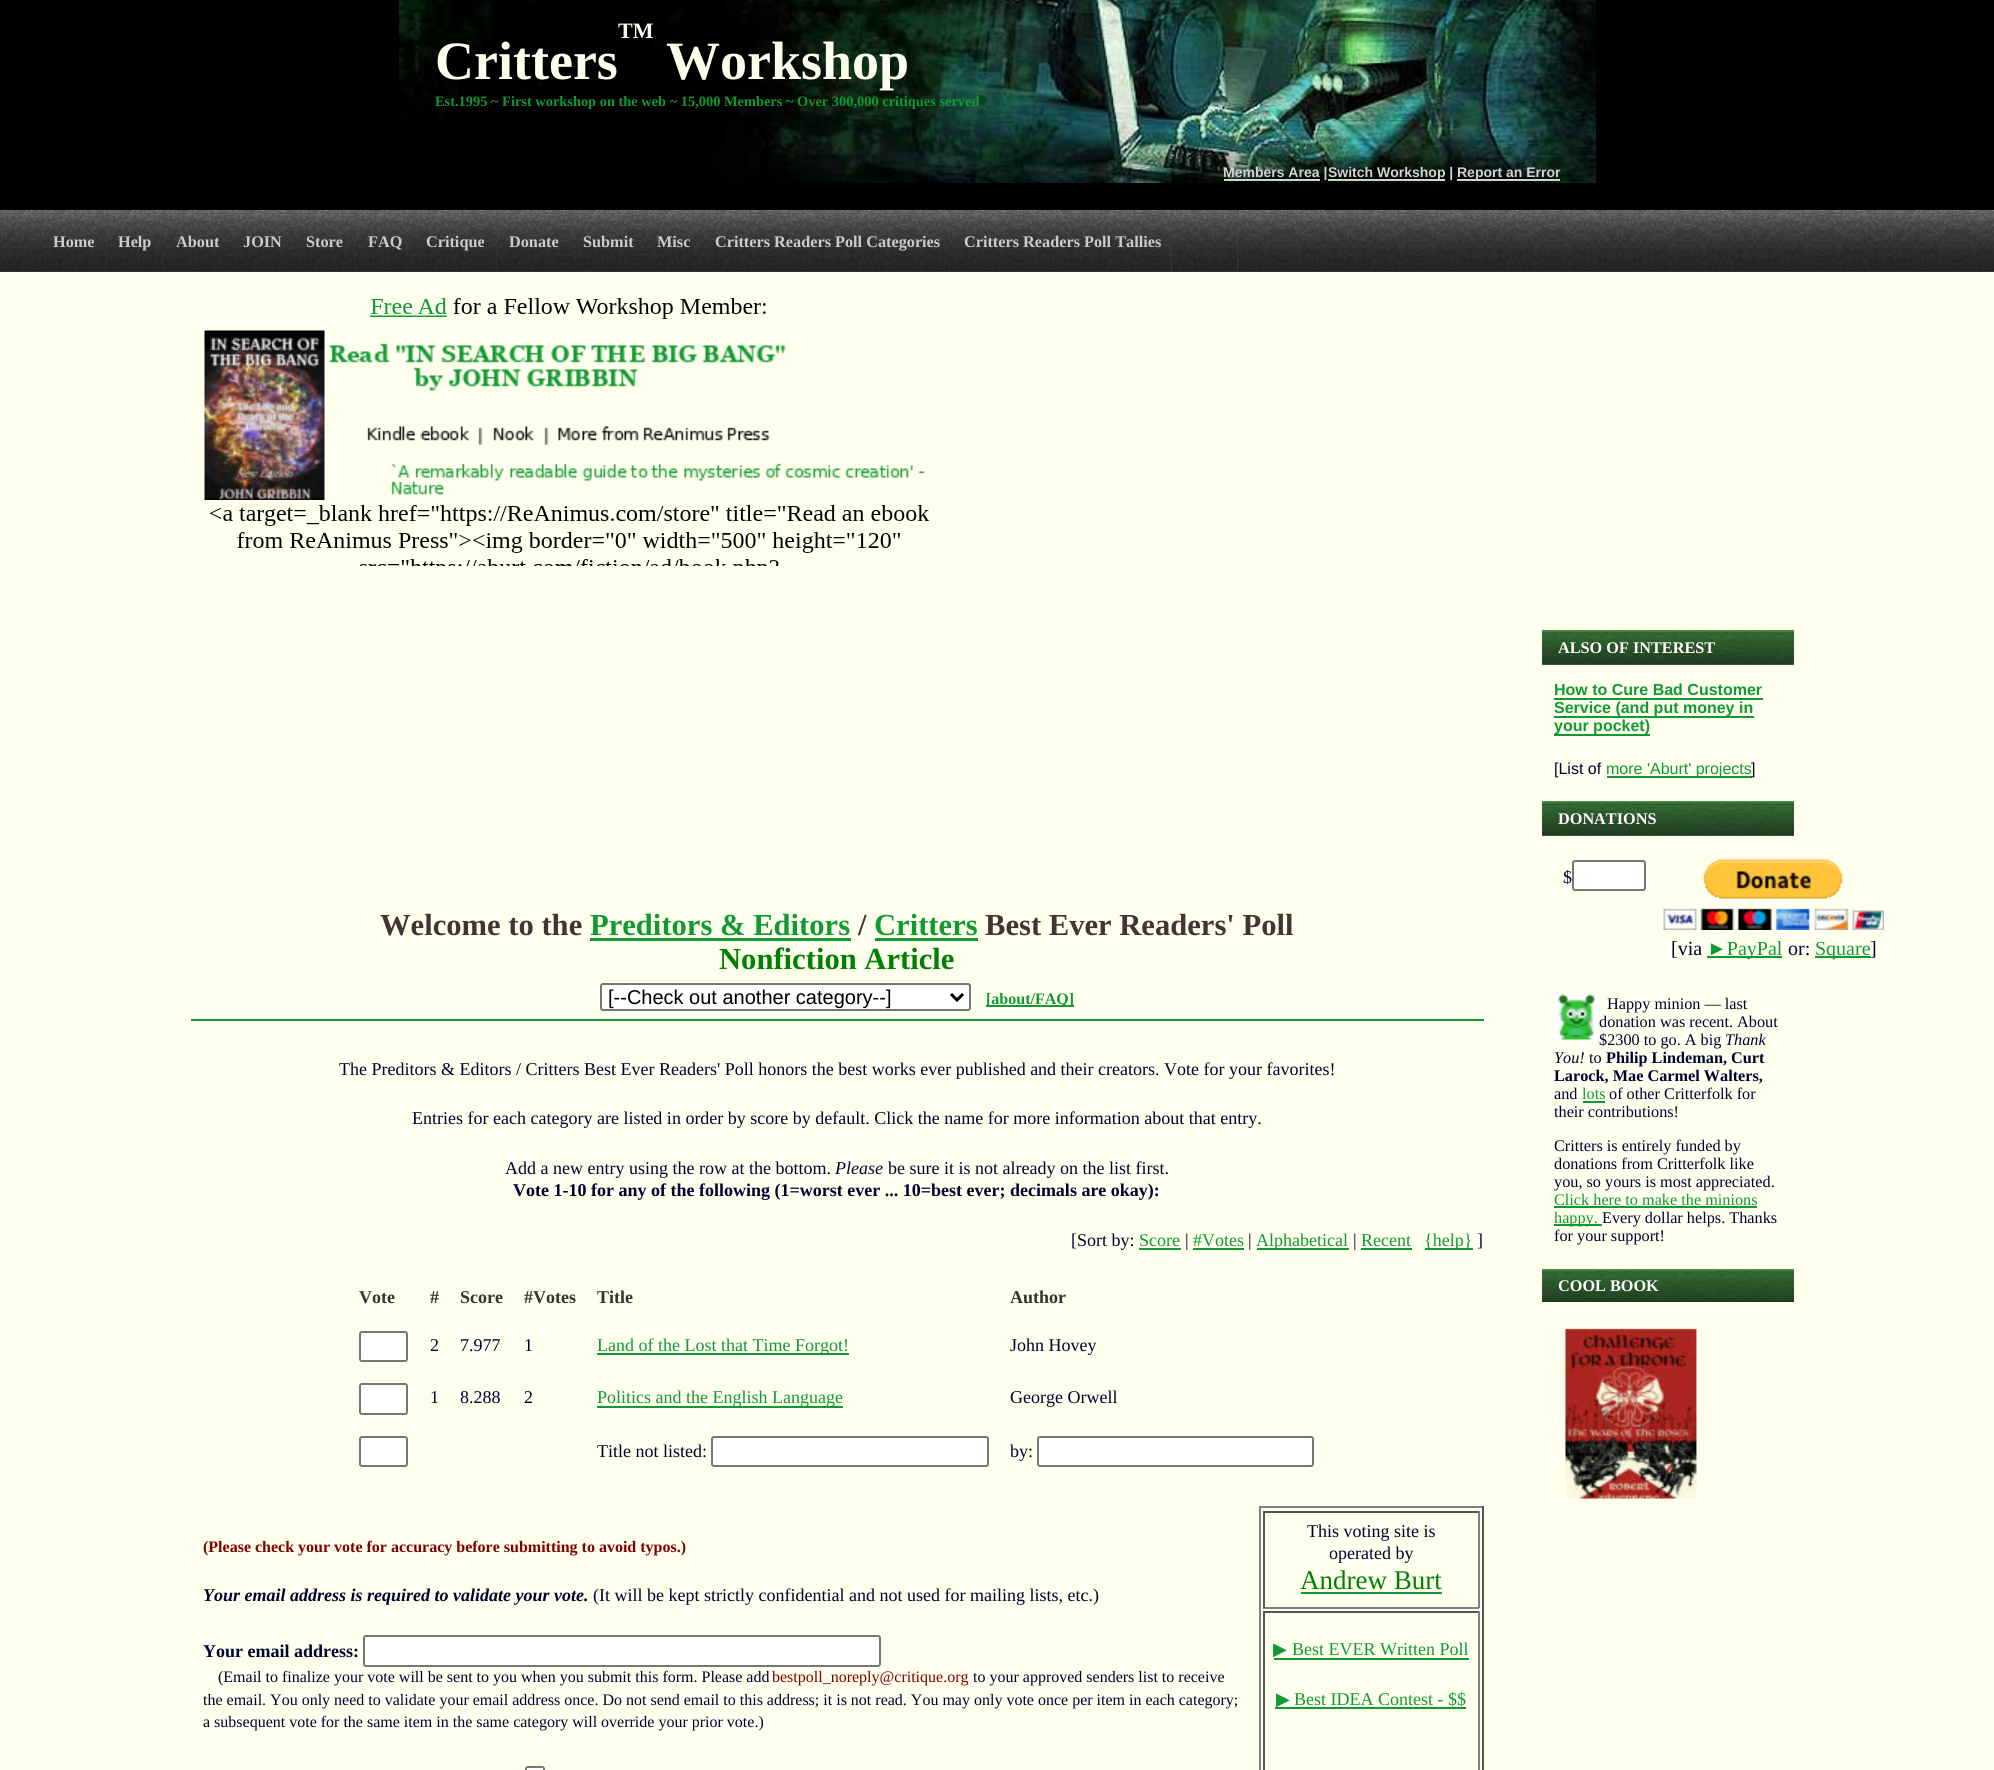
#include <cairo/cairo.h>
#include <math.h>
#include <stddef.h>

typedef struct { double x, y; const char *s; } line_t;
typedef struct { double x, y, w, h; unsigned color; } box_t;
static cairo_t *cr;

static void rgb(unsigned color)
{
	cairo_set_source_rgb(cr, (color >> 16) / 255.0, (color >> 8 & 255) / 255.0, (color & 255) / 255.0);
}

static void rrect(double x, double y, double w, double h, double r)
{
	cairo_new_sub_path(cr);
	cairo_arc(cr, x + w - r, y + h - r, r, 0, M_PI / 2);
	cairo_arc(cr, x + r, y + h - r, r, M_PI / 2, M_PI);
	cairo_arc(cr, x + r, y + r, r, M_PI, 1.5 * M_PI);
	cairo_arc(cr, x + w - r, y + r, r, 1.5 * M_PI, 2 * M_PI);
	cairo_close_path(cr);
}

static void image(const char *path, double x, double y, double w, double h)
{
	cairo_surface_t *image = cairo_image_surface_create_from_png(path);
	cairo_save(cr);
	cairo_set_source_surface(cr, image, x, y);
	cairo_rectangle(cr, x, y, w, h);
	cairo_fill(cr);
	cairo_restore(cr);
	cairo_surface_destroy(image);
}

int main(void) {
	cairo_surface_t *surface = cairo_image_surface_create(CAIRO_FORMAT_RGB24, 1994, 1770);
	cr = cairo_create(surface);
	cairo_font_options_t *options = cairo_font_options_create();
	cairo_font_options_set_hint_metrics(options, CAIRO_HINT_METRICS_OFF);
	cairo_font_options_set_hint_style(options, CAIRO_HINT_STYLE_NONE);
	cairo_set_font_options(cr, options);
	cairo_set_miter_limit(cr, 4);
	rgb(0xffffee);
	cairo_paint(cr);
	rgb(0x000000);
	cairo_rectangle(cr, 0, 0, 1994, 210);
	cairo_fill(cr);
	image("img/1.png", 399, 0, 1197, 183);
	{
		static const box_t items[] = {
			{1224, 179, 96, 2, 0xd3d3d3},
			{1328, 179, 117, 2, 0xd3d3d3},
			{1457, 179, 103, 2, 0xd3d3d3},
			{1238, 271, 756, 1, 0x444444},
		};
		for (size_t i = 0; i < sizeof items / sizeof *items; i++) {
			rgb(items[i].color);
			cairo_rectangle(cr, items[i].x, items[i].y, items[i].w, items[i].h);
			cairo_fill(cr);
		}
	}
	image("img/2.png", 1238, 210, 756, 62);
	cairo_rectangle(cr, 0, 210, 1238, 62);
	cairo_fill(cr);
	image("img/3.png", 0, 210, 1238, 62);
	cairo_rectangle(cr, 41, 210, 123, 62);
	cairo_fill(cr);
	image("img/4.png", 40, 210, 67, 62);
	image("img/5.png", 106, 210, 58, 62);
	cairo_rectangle(cr, 164, 271, 130, 1);
	cairo_fill(cr);
	image("img/6.png", 163, 210, 68, 62);
	image("img/7.png", 231, 210, 63, 62);
	cairo_rectangle(cr, 294, 210, 62, 62);
	cairo_fill(cr);
	image("img/8.png", 294, 210, 62, 62);
	cairo_rectangle(cr, 356, 271, 58, 1);
	cairo_fill(cr);
	image("img/9.png", 355, 210, 59, 62);
	cairo_rectangle(cr, 414, 210, 83, 62);
	cairo_fill(cr);
	image("img/10.png", 414, 210, 83, 62);
	cairo_rectangle(cr, 497, 271, 454, 1);
	cairo_fill(cr);
	image("img/11.png", 496, 210, 74, 62);
	image("img/12.png", 570, 210, 75, 62);
	image("img/13.png", 645, 210, 57, 62);
	image("img/14.png", 702, 210, 249, 62);
	cairo_rectangle(cr, 951, 210, 221, 62);
	cairo_fill(cr);
	image("img/15.png", 951, 210, 221, 62);
	image("img/16.png", 204, 298, 726, 268);
	{
		static const box_t items[] = {
			{191, 1019, 1293, 2, 0x119933},
			{590, 938, 261, 3, 0x119933},
			{875, 938, 103, 3, 0x119933},
		};
		for (size_t i = 0; i < sizeof items / sizeof *items; i++) {
			rgb(items[i].color);
			cairo_rectangle(cr, items[i].x, items[i].y, items[i].w, items[i].h);
			cairo_fill(cr);
		}
	}
	rgb(0xffffff);
	rrect(601, 984, 369, 26, 2);
	cairo_fill_preserve(cr);
	rgb(0x767676);
	cairo_stroke(cr);
	cairo_new_path(cr);
	cairo_move_to(cr, 951, 994);
	cairo_line_to(cr, 957, 1000);
	cairo_line_to(cr, 963, 994);
	rgb(0x000000);
	cairo_set_line_width(cr, 3);
	cairo_stroke(cr);
	{
		static const box_t items[] = {
			{986, 1005, 88, 2, 0x119933},
			{1139, 1248, 42, 2, 0x119933},
			{1193, 1248, 51, 2, 0x119933},
			{1257, 1248, 92, 2, 0x119933},
			{1361, 1248, 51, 2, 0x119933},
			{1425, 1248, 48, 2, 0x119933},
		};
		for (size_t i = 0; i < sizeof items / sizeof *items; i++) {
			rgb(items[i].color);
			cairo_rectangle(cr, items[i].x, items[i].y, items[i].w, items[i].h);
			cairo_fill(cr);
		}
	}
	rgb(0xffffff);
	rrect(360, 1332, 47, 29, 2);
	cairo_fill_preserve(cr);
	rgb(0x767676);
	cairo_set_line_width(cr, 2);
	cairo_stroke(cr);
	rgb(0x119933);
	cairo_rectangle(cr, 597, 1353, 252, 2);
	cairo_fill(cr);
	rgb(0xffffff);
	rrect(360, 1384, 47, 30, 2);
	cairo_fill_preserve(cr);
	rgb(0x767676);
	cairo_stroke(cr);
	rgb(0x119933);
	cairo_rectangle(cr, 597, 1406, 246, 2);
	cairo_fill(cr);
	rgb(0xffffff);
	rrect(360, 1437, 47, 29, 2);
	cairo_fill_preserve(cr);
	rgb(0x767676);
	cairo_stroke(cr);
	rgb(0xffffff);
	rrect(712, 1437, 276, 29, 2);
	cairo_fill_preserve(cr);
	rgb(0x767676);
	cairo_stroke(cr);
	rgb(0xffffff);
	rrect(1038, 1437, 275, 29, 2);
	cairo_fill_preserve(cr);
	rgb(0x767676);
	cairo_stroke(cr);
	rgb(0xffffff);
	rrect(364, 1636, 516, 30, 2);
	cairo_fill_preserve(cr);
	rgb(0x767676);
	cairo_stroke(cr);
	rgb(0xffffff);
	rrect(526, 1767, 18, 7, 2);
	cairo_fill_preserve(cr);
	rgb(0x767676);
	cairo_stroke(cr);
	{
		static const box_t items[] = {
			{1259, 1506, 225, 2, 0x808080},
			{1482, 1506, 2, 264, 0x555555},
			{1259, 1506, 2, 264, 0x808080},
			{1263, 1511, 216, 2, 0x555555},
			{1478, 1511, 2, 97, 0x808080},
			{1263, 1607, 216, 2, 0x808080},
			{1263, 1511, 2, 97, 0x555555},
			{1301, 1592, 141, 2, 0x119933},
			{1263, 1611, 216, 2, 0x555555},
			{1478, 1611, 2, 159, 0x808080},
			{1263, 1611, 2, 159, 0x555555},
			{1274, 1658, 195, 2, 0x119933},
			{1275, 1707, 191, 2, 0x119933},
			{1542, 664, 252, 1, 0x666666},
		};
		for (size_t i = 0; i < sizeof items / sizeof *items; i++) {
			rgb(items[i].color);
			cairo_rectangle(cr, items[i].x, items[i].y, items[i].w, items[i].h);
			cairo_fill(cr);
		}
	}
	image("img/17.png", 1542, 630, 252, 35);
	{
		static const box_t items[] = {
			{1554, 698, 209, 2, 0x119933},
			{1554, 716, 200, 2, 0x119933},
			{1554, 734, 96, 2, 0x119933},
			{1607, 776, 145, 2, 0x119933},
			{1542, 835, 252, 1, 0x666666},
		};
		for (size_t i = 0; i < sizeof items / sizeof *items; i++) {
			rgb(items[i].color);
			cairo_rectangle(cr, items[i].x, items[i].y, items[i].w, items[i].h);
			cairo_fill(cr);
		}
	}
	image("img/18.png", 1542, 801, 252, 35);
	rgb(0xffffff);
	rrect(1573, 861, 72, 29, 2);
	cairo_fill_preserve(cr);
	rgb(0x767676);
	cairo_stroke(cr);
	image("img/19.png", 1663, 859, 221, 71);
	rgb(0x119933);
	cairo_rectangle(cr, 1707, 956, 75, 2);
	cairo_fill(cr);
	cairo_rectangle(cr, 1815, 956, 56, 2);
	cairo_fill(cr);
	image("img/20.png", 1554, 994, 45, 46);
	{
		static const box_t items[] = {
			{1583, 1101, 22, 2, 0x119933},
			{1554, 1206, 203, 2, 0x119933},
			{1554, 1224, 48, 2, 0x119933},
		};
		for (size_t i = 0; i < sizeof items / sizeof *items; i++) {
			rgb(items[i].color);
			cairo_rectangle(cr, items[i].x, items[i].y, items[i].w, items[i].h);
			cairo_fill(cr);
		}
	}
	image("img/21.png", 1542, 1269, 252, 33);
	image("img/22.png", 1565, 1328, 132, 171);
	cairo_select_font_face(cr, "Liberation Serif", CAIRO_FONT_SLANT_NORMAL, CAIRO_FONT_WEIGHT_BOLD);
	cairo_set_font_size(cr, 22);
	rgb(0xffffee);
	cairo_move_to(cr, 618, 38);
	cairo_show_text(cr, "TM");
	cairo_set_font_size(cr, 54);
	cairo_move_to(cr, 435, 79);
	cairo_show_text(cr, "Critters");
	cairo_move_to(cr, 666, 79);
	cairo_show_text(cr, "Workshop");
	cairo_set_font_size(cr, 14.4);
	rgb(0x119933);
	cairo_move_to(cr, 435, 106);
	cairo_show_text(cr, "Est.1995 ~ First workshop on the web ~ 15,000 Members ~ Over 300,000 critiques served");
	cairo_select_font_face(cr, "Liberation Sans", CAIRO_FONT_SLANT_NORMAL, CAIRO_FONT_WEIGHT_BOLD);
	cairo_set_font_size(cr, 14);
	rgb(0xd3d3d3);
	{
		static const line_t items[] = {
			{1223, 177, "Members Area |"},
			{1328, 177, "Switch Workshop |"},
			{1457, 177, "Report an Error"},
		};
		for (size_t i = 0; i < sizeof items / sizeof *items; i++) {
			cairo_move_to(cr, items[i].x, items[i].y);
			cairo_show_text(cr, items[i].s);
		}
	}
	cairo_select_font_face(cr, "Liberation Serif", CAIRO_FONT_SLANT_NORMAL, CAIRO_FONT_WEIGHT_BOLD);
	cairo_set_font_size(cr, 16.25);
	rgb(0xcccccc);
	{
		static const line_t items[] = {
			{53, 247, "Home"},
			{118, 247, "Help"},
			{176, 247, "About"},
			{243, 247, "JOIN"},
			{306, 247, "Store"},
			{368, 247, "FAQ"},
			{426, 247, "Critique"},
			{509, 247, "Donate"},
			{583, 247, "Submit"},
			{657, 247, "Misc"},
			{715, 247, "Critters Readers Poll Categories"},
			{964, 247, "Critters Readers Poll Tallies"},
		};
		for (size_t i = 0; i < sizeof items / sizeof *items; i++) {
			cairo_move_to(cr, items[i].x, items[i].y);
			cairo_show_text(cr, items[i].s);
		}
	}
	cairo_set_font_size(cr, 30.6);
	rgb(0x443333);
	cairo_move_to(cr, 380, 935);
	cairo_show_text(cr, "Welcome to the");
	rgb(0x119933);
	cairo_move_to(cr, 590, 935);
	cairo_show_text(cr, "Preditors & Editors");
	rgb(0x443333);
	cairo_move_to(cr, 858, 935);
	cairo_show_text(cr, "/");
	rgb(0x119933);
	cairo_move_to(cr, 874, 935);
	cairo_show_text(cr, "Critters");
	rgb(0x443333);
	cairo_move_to(cr, 985, 935);
	cairo_show_text(cr, "Best Ever Readers' Poll");
	rgb(0x008000);
	cairo_move_to(cr, 719, 969);
	cairo_show_text(cr, "Nonfiction Article");
	cairo_select_font_face(cr, "Liberation Sans", CAIRO_FONT_SLANT_NORMAL, CAIRO_FONT_WEIGHT_NORMAL);
	cairo_set_font_size(cr, 20);
	rgb(0x000000);
	cairo_move_to(cr, 608, 1004);
	cairo_show_text(cr, "[--Check out another category--]");
	cairo_select_font_face(cr, "Liberation Serif", CAIRO_FONT_SLANT_NORMAL, CAIRO_FONT_WEIGHT_BOLD);
	cairo_set_font_size(cr, 16);
	rgb(0x119933);
	cairo_move_to(cr, 986, 1004);
	cairo_show_text(cr, "[about/FAQ]");
	cairo_select_font_face(cr, "Liberation Serif", CAIRO_FONT_SLANT_NORMAL, CAIRO_FONT_WEIGHT_NORMAL);
	cairo_set_font_size(cr, 18);
	rgb(0x000033);
	{
		static const line_t items[] = {
			{339, 1075, "The Preditors & Editors / Critters Best Ever Readers' Poll honors the best works ever published and their creators. Vote for your favorites!"},
			{412, 1124, "Entries for each category are listed in order by score by default. Click the name for more information about that entry."},
			{505, 1174, "Add a new entry using the row at the bottom."},
		};
		for (size_t i = 0; i < sizeof items / sizeof *items; i++) {
			cairo_move_to(cr, items[i].x, items[i].y);
			cairo_show_text(cr, items[i].s);
		}
	}
	cairo_select_font_face(cr, "Liberation Serif", CAIRO_FONT_SLANT_ITALIC, CAIRO_FONT_WEIGHT_NORMAL);
	cairo_move_to(cr, 835, 1174);
	cairo_show_text(cr, "Please");
	cairo_select_font_face(cr, "Liberation Serif", CAIRO_FONT_SLANT_NORMAL, CAIRO_FONT_WEIGHT_NORMAL);
	cairo_move_to(cr, 888, 1174);
	cairo_show_text(cr, "be sure it is not already on the list first.");
	cairo_select_font_face(cr, "Liberation Serif", CAIRO_FONT_SLANT_NORMAL, CAIRO_FONT_WEIGHT_BOLD);
	cairo_move_to(cr, 513, 1196);
	cairo_show_text(cr, "Vote 1-10 for any of the following (1=worst ever ... 10=best ever; decimals are okay):");
	cairo_select_font_face(cr, "Liberation Serif", CAIRO_FONT_SLANT_NORMAL, CAIRO_FONT_WEIGHT_NORMAL);
	cairo_move_to(cr, 1071, 1246);
	cairo_show_text(cr, "[Sort by:");
	rgb(0x119933);
	cairo_move_to(cr, 1139, 1246);
	cairo_show_text(cr, "Score");
	rgb(0x000033);
	cairo_move_to(cr, 1185, 1246);
	cairo_show_text(cr, "|");
	rgb(0x119933);
	cairo_move_to(cr, 1193, 1246);
	cairo_show_text(cr, "#Votes");
	rgb(0x000033);
	cairo_move_to(cr, 1248, 1246);
	cairo_show_text(cr, "|");
	rgb(0x119933);
	cairo_move_to(cr, 1256, 1246);
	cairo_show_text(cr, "Alphabetical");
	rgb(0x000033);
	cairo_move_to(cr, 1353, 1246);
	cairo_show_text(cr, "|");
	rgb(0x119933);
	cairo_move_to(cr, 1361, 1246);
	cairo_show_text(cr, "Recent");
	cairo_move_to(cr, 1424, 1246);
	cairo_show_text(cr, "{help}");
	rgb(0x000033);
	cairo_move_to(cr, 1477, 1246);
	cairo_show_text(cr, "]");
	cairo_select_font_face(cr, "Liberation Serif", CAIRO_FONT_SLANT_NORMAL, CAIRO_FONT_WEIGHT_BOLD);
	rgb(0x333333);
	{
		static const line_t items[] = {
			{359, 1303, "Vote"},
			{430, 1303, "#"},
			{460, 1303, "Score"},
			{524, 1303, "#Votes"},
			{597, 1303, "Title"},
			{1010, 1303, "Author"},
		};
		for (size_t i = 0; i < sizeof items / sizeof *items; i++) {
			cairo_move_to(cr, items[i].x, items[i].y);
			cairo_show_text(cr, items[i].s);
		}
	}
	cairo_select_font_face(cr, "Liberation Serif", CAIRO_FONT_SLANT_NORMAL, CAIRO_FONT_WEIGHT_NORMAL);
	rgb(0x000033);
	{
		static const line_t items[] = {
			{430, 1351, "2"},
			{460, 1351, "7.977"},
			{524, 1351, "1"},
		};
		for (size_t i = 0; i < sizeof items / sizeof *items; i++) {
			cairo_move_to(cr, items[i].x, items[i].y);
			cairo_show_text(cr, items[i].s);
		}
	}
	rgb(0x119933);
	cairo_move_to(cr, 597, 1351);
	cairo_show_text(cr, "Land of the Lost that Time Forgot!");
	rgb(0x000033);
	{
		static const line_t items[] = {
			{1010, 1351, "John Hovey"},
			{430, 1403, "1"},
			{460, 1403, "8.288"},
			{524, 1403, "2"},
		};
		for (size_t i = 0; i < sizeof items / sizeof *items; i++) {
			cairo_move_to(cr, items[i].x, items[i].y);
			cairo_show_text(cr, items[i].s);
		}
	}
	rgb(0x119933);
	cairo_move_to(cr, 597, 1403);
	cairo_show_text(cr, "Politics and the English Language");
	rgb(0x000033);
	{
		static const line_t items[] = {
			{1010, 1403, "George Orwell"},
			{597, 1457, "Title not listed:"},
			{1010, 1457, "by:"},
		};
		for (size_t i = 0; i < sizeof items / sizeof *items; i++) {
			cairo_move_to(cr, items[i].x, items[i].y);
			cairo_show_text(cr, items[i].s);
		}
	}
	cairo_select_font_face(cr, "Liberation Serif", CAIRO_FONT_SLANT_NORMAL, CAIRO_FONT_WEIGHT_BOLD);
	cairo_set_font_size(cr, 16);
	rgb(0x800000);
	cairo_move_to(cr, 203, 1552);
	cairo_show_text(cr, "(Please check your vote for accuracy before submitting to avoid typos.)");
	cairo_select_font_face(cr, "Liberation Serif", CAIRO_FONT_SLANT_ITALIC, CAIRO_FONT_WEIGHT_BOLD);
	cairo_set_font_size(cr, 18);
	rgb(0x000033);
	cairo_move_to(cr, 203, 1601);
	cairo_show_text(cr, "Your email address is required to validate your vote.");
	cairo_select_font_face(cr, "Liberation Serif", CAIRO_FONT_SLANT_NORMAL, CAIRO_FONT_WEIGHT_NORMAL);
	cairo_move_to(cr, 593, 1601);
	cairo_show_text(cr, "(It will be kept strictly confidential and not used for mailing lists, etc.)");
	cairo_select_font_face(cr, "Liberation Serif", CAIRO_FONT_SLANT_NORMAL, CAIRO_FONT_WEIGHT_BOLD);
	cairo_move_to(cr, 203, 1657);
	cairo_show_text(cr, "Your email address:");
	cairo_select_font_face(cr, "Liberation Serif", CAIRO_FONT_SLANT_NORMAL, CAIRO_FONT_WEIGHT_NORMAL);
	cairo_set_font_size(cr, 16);
	cairo_move_to(cr, 218, 1682);
	cairo_show_text(cr, "(Email to finalize your vote will be sent to you when you submit this form. Please add");
	rgb(0x800000);
	cairo_move_to(cr, 772, 1682);
	cairo_show_text(cr, "bestpoll_noreply@critique.org");
	rgb(0x000033);
	{
		static const line_t items[] = {
			{973, 1682, "to your approved senders list to receive"},
			{203, 1705, "the email. You only need to validate your email address once. Do not send email to this address; it is not read. You may only vote once per item in each category;"},
			{203, 1727, "a subsequent vote for the same item in the same category will override your prior vote.)"},
		};
		for (size_t i = 0; i < sizeof items / sizeof *items; i++) {
			cairo_move_to(cr, items[i].x, items[i].y);
			cairo_show_text(cr, items[i].s);
		}
	}
	cairo_set_font_size(cr, 18);
	cairo_move_to(cr, 1307, 1537);
	cairo_show_text(cr, "This voting site is");
	cairo_move_to(cr, 1329, 1559);
	cairo_show_text(cr, "operated by");
	cairo_set_font_size(cr, 27);
	rgb(0x008000);
	cairo_move_to(cr, 1300, 1589);
	cairo_show_text(cr, "Andrew Burt");
	cairo_select_font_face(cr, "DejaVu Sans", CAIRO_FONT_SLANT_NORMAL, CAIRO_FONT_WEIGHT_NORMAL);
	cairo_set_font_size(cr, 18);
	rgb(0x119933);
	cairo_move_to(cr, 1273, 1655);
	cairo_show_text(cr, "▶");
	cairo_select_font_face(cr, "Liberation Serif", CAIRO_FONT_SLANT_NORMAL, CAIRO_FONT_WEIGHT_NORMAL);
	cairo_move_to(cr, 1292, 1655);
	cairo_show_text(cr, "Best EVER Written Poll");
	cairo_select_font_face(cr, "DejaVu Sans", CAIRO_FONT_SLANT_NORMAL, CAIRO_FONT_WEIGHT_NORMAL);
	cairo_move_to(cr, 1276, 1705);
	cairo_show_text(cr, "▶");
	cairo_select_font_face(cr, "Liberation Serif", CAIRO_FONT_SLANT_NORMAL, CAIRO_FONT_WEIGHT_NORMAL);
	cairo_move_to(cr, 1294, 1705);
	cairo_show_text(cr, "Best IDEA Contest - $$");
	cairo_select_font_face(cr, "Liberation Serif", CAIRO_FONT_SLANT_NORMAL, CAIRO_FONT_WEIGHT_BOLD);
	cairo_set_font_size(cr, 16.25);
	rgb(0xffffff);
	cairo_move_to(cr, 1558, 653);
	cairo_show_text(cr, "ALSO OF INTEREST");
	cairo_select_font_face(cr, "Liberation Sans", CAIRO_FONT_SLANT_NORMAL, CAIRO_FONT_WEIGHT_BOLD);
	cairo_set_font_size(cr, 16);
	rgb(0x119933);
	{
		static const line_t items[] = {
			{1554, 695, "How to Cure Bad Customer"},
			{1554, 713, "Service (and put money in"},
			{1554, 731, "your pocket)"},
		};
		for (size_t i = 0; i < sizeof items / sizeof *items; i++) {
			cairo_move_to(cr, items[i].x, items[i].y);
			cairo_show_text(cr, items[i].s);
		}
	}
	cairo_select_font_face(cr, "Liberation Sans", CAIRO_FONT_SLANT_NORMAL, CAIRO_FONT_WEIGHT_NORMAL);
	rgb(0x000033);
	cairo_move_to(cr, 1554, 774);
	cairo_show_text(cr, "[List of");
	rgb(0x119933);
	cairo_move_to(cr, 1606, 774);
	cairo_show_text(cr, "more 'Aburt' projects");
	rgb(0x000033);
	cairo_move_to(cr, 1751, 774);
	cairo_show_text(cr, "]");
	cairo_select_font_face(cr, "Liberation Serif", CAIRO_FONT_SLANT_NORMAL, CAIRO_FONT_WEIGHT_BOLD);
	cairo_set_font_size(cr, 16.25);
	rgb(0xffffff);
	cairo_move_to(cr, 1558, 824);
	cairo_show_text(cr, "DONATIONS");
	cairo_select_font_face(cr, "Liberation Serif", CAIRO_FONT_SLANT_NORMAL, CAIRO_FONT_WEIGHT_NORMAL);
	cairo_set_font_size(cr, 18);
	rgb(0x000033);
	cairo_move_to(cr, 1563, 883);
	cairo_show_text(cr, "$");
	cairo_set_font_size(cr, 20);
	cairo_move_to(cr, 1671, 955);
	cairo_show_text(cr, "[via");
	rgb(0x119933);
	cairo_move_to(cr, 1707, 955);
	cairo_show_text(cr, "►PayPal");
	rgb(0x000033);
	cairo_move_to(cr, 1788, 955);
	cairo_show_text(cr, "or:");
	rgb(0x119933);
	cairo_move_to(cr, 1815, 955);
	cairo_show_text(cr, "Square");
	rgb(0x000033);
	cairo_move_to(cr, 1870, 955);
	cairo_show_text(cr, "]");
	cairo_set_font_size(cr, 16.25);
	{
		static const line_t items[] = {
			{1607, 1009, "Happy minion — last"},
			{1599, 1027, "donation was recent. About"},
			{1599, 1045, "$2300 to go. A big"},
		};
		for (size_t i = 0; i < sizeof items / sizeof *items; i++) {
			cairo_move_to(cr, items[i].x, items[i].y);
			cairo_show_text(cr, items[i].s);
		}
	}
	cairo_select_font_face(cr, "Liberation Serif", CAIRO_FONT_SLANT_ITALIC, CAIRO_FONT_WEIGHT_NORMAL);
	cairo_move_to(cr, 1725, 1045);
	cairo_show_text(cr, "Thank");
	cairo_move_to(cr, 1554, 1063);
	cairo_show_text(cr, "You!");
	cairo_select_font_face(cr, "Liberation Serif", CAIRO_FONT_SLANT_NORMAL, CAIRO_FONT_WEIGHT_NORMAL);
	cairo_move_to(cr, 1589, 1063);
	cairo_show_text(cr, "to");
	cairo_select_font_face(cr, "Liberation Serif", CAIRO_FONT_SLANT_NORMAL, CAIRO_FONT_WEIGHT_BOLD);
	cairo_move_to(cr, 1606, 1063);
	cairo_show_text(cr, "Philip Lindeman, Curt");
	cairo_move_to(cr, 1554, 1081);
	cairo_show_text(cr, "Larock, Mae Carmel Walters,");
	cairo_select_font_face(cr, "Liberation Serif", CAIRO_FONT_SLANT_NORMAL, CAIRO_FONT_WEIGHT_NORMAL);
	cairo_move_to(cr, 1554, 1099);
	cairo_show_text(cr, "and");
	rgb(0x119933);
	cairo_move_to(cr, 1582, 1099);
	cairo_show_text(cr, "lots");
	rgb(0x000033);
	{
		static const line_t items[] = {
			{1609, 1099, "of other Critterfolk for"},
			{1554, 1117, "their contributions!"},
			{1554, 1151, "Critters is entirely funded by"},
			{1554, 1169, "donations from Critterfolk like"},
			{1554, 1187, "you, so yours is most appreciated."},
		};
		for (size_t i = 0; i < sizeof items / sizeof *items; i++) {
			cairo_move_to(cr, items[i].x, items[i].y);
			cairo_show_text(cr, items[i].s);
		}
	}
	rgb(0x119933);
	cairo_move_to(cr, 1554, 1205);
	cairo_show_text(cr, "Click here to make the minions");
	cairo_move_to(cr, 1554, 1223);
	cairo_show_text(cr, "happy.");
	rgb(0x000033);
	cairo_move_to(cr, 1602, 1223);
	cairo_show_text(cr, "Every dollar helps. Thanks");
	cairo_move_to(cr, 1554, 1241);
	cairo_show_text(cr, "for your support!");
	cairo_select_font_face(cr, "Liberation Serif", CAIRO_FONT_SLANT_NORMAL, CAIRO_FONT_WEIGHT_BOLD);
	rgb(0xffffff);
	cairo_move_to(cr, 1558, 1291);
	cairo_show_text(cr, "COOL BOOK");
	cairo_surface_write_to_png(surface, "page.png");
	cairo_font_options_destroy(options);
	cairo_destroy(cr);
	cairo_surface_destroy(surface);
	return 0;
}
